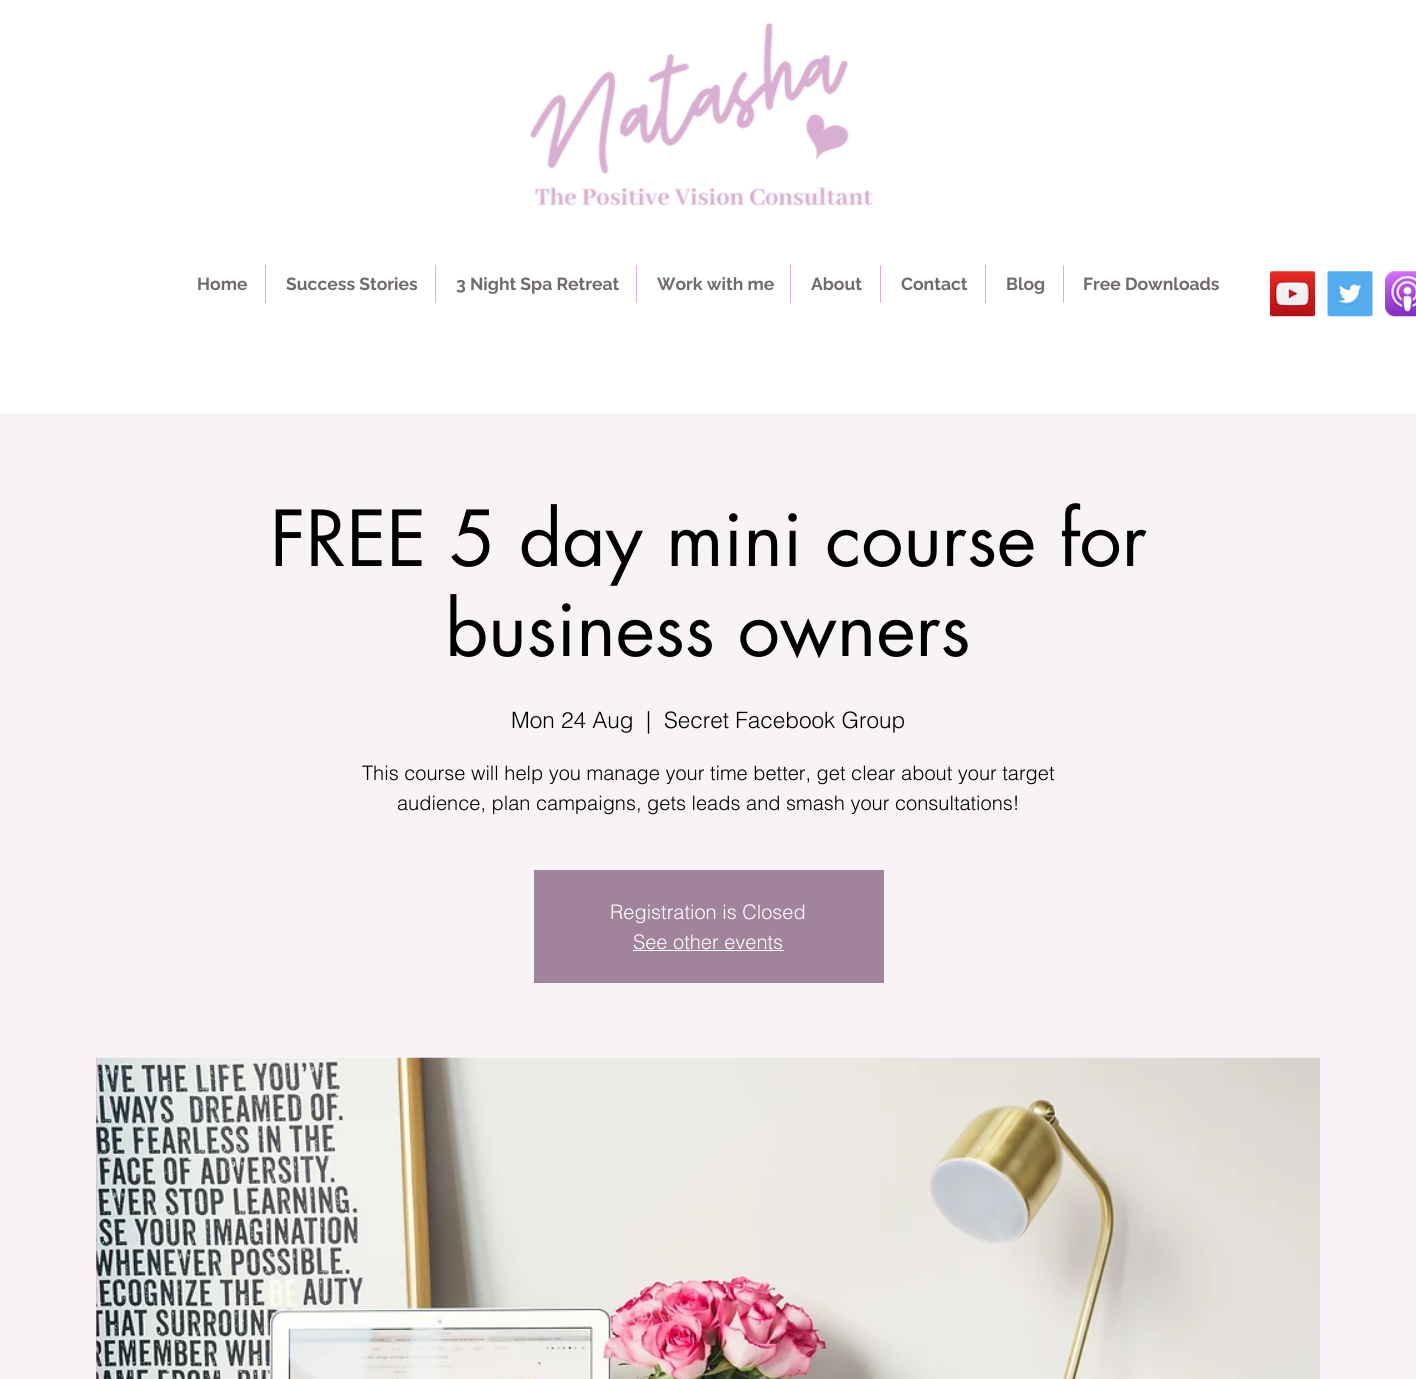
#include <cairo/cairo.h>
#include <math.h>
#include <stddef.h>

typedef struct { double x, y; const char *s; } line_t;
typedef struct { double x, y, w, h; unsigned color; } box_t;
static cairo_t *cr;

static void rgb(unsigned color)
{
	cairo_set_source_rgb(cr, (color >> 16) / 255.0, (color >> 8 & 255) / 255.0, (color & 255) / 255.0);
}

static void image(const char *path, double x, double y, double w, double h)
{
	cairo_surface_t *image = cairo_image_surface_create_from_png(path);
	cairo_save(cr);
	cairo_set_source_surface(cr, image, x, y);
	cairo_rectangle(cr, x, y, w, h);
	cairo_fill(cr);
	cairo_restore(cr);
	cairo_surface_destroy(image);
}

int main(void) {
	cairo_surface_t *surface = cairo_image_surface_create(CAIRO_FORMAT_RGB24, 1416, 1379);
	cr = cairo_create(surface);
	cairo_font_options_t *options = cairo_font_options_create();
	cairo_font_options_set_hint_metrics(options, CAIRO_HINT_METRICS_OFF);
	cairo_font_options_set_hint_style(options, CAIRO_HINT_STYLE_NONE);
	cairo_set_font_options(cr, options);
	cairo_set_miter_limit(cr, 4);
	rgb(0xffffff);
	cairo_paint(cr);
	image("img/1.png", 530, 22, 343, 184);
	{
		static const box_t items[] = {
			{265, 265, 1, 38, 0xd8afd2},
			{435, 265, 1, 38, 0xd8afd2},
			{636, 265, 1, 38, 0xd8afd2},
			{790, 265, 1, 38, 0xd8afd2},
			{880, 265, 1, 38, 0xd8afd2},
			{985, 265, 1, 38, 0xd8afd2},
			{1063, 265, 1, 38, 0xd8afd2},
		};
		for (size_t i = 0; i < sizeof items / sizeof *items; i++) {
			rgb(items[i].color);
			cairo_rectangle(cr, items[i].x, items[i].y, items[i].w, items[i].h);
			cairo_fill(cr);
		}
	}
	image("img/2.png", 1270, 271, 45, 46);
	image("img/3.png", 1327, 271, 46, 46);
	image("img/4.png", 1385, 271, 31, 46);
	{
		static const box_t items[] = {
			{0, 413, 1416, 966, 0xf7f3f6},
			{534, 870, 350, 113, 0xa2839d},
			{633, 950, 151, 1, 0xffffff},
			{96, 1058, 1, 321, 0xd8afd2},
		};
		for (size_t i = 0; i < sizeof items / sizeof *items; i++) {
			rgb(items[i].color);
			cairo_rectangle(cr, items[i].x, items[i].y, items[i].w, items[i].h);
			cairo_fill(cr);
		}
	}
	image("img/5.png", 96, 1057, 1224, 322);
	cairo_select_font_face(cr, "Raleway", CAIRO_FONT_SLANT_NORMAL, CAIRO_FONT_WEIGHT_BOLD);
	cairo_set_font_size(cr, 17.5);
	rgb(0x70696f);
	{
		static const line_t items[] = {
			{197, 290, "Home"},
			{286, 290, "Success Stories"},
			{456, 290, "3 Night Spa Retreat"},
			{657, 290, "Work with me"},
			{811, 290, "About"},
			{901, 290, "Contact"},
			{1006, 290, "Blog"},
			{1083, 290, "Free Downloads"},
		};
		for (size_t i = 0; i < sizeof items / sizeof *items; i++) {
			cairo_move_to(cr, items[i].x, items[i].y);
			cairo_show_text(cr, items[i].s);
		}
	}
	cairo_select_font_face(cr, "futura", CAIRO_FONT_SLANT_NORMAL, CAIRO_FONT_WEIGHT_NORMAL);
	cairo_set_font_size(cr, 75);
	rgb(0x000000);
	cairo_move_to(cr, 270, 566);
	cairo_show_text(cr, "FREE 5 day mini course for");
	cairo_move_to(cr, 445, 656);
	cairo_show_text(cr, "business owners");
	cairo_select_font_face(cr, "helvetica Light", CAIRO_FONT_SLANT_NORMAL, CAIRO_FONT_WEIGHT_NORMAL);
	cairo_set_font_size(cr, 22.5);
	{
		static const line_t items[] = {
			{511, 728, "Mon 24 Aug"},
			{646, 728, "|"},
			{664, 728, "Secret Facebook Group"},
		};
		for (size_t i = 0; i < sizeof items / sizeof *items; i++) {
			cairo_move_to(cr, items[i].x, items[i].y);
			cairo_show_text(cr, items[i].s);
		}
	}
	cairo_set_font_size(cr, 20);
	cairo_move_to(cr, 362, 780);
	cairo_show_text(cr, "This course will help you manage your time better, get clear about your target");
	cairo_move_to(cr, 397, 810);
	cairo_show_text(cr, "audience, plan campaigns, gets leads and smash your consultations!");
	rgb(0xffffff);
	cairo_move_to(cr, 610, 919);
	cairo_show_text(cr, "Registration is Closed");
	cairo_move_to(cr, 633, 949);
	cairo_show_text(cr, "See other events");
	cairo_surface_write_to_png(surface, "page.png");
	cairo_font_options_destroy(options);
	cairo_destroy(cr);
	cairo_surface_destroy(surface);
	return 0;
}
